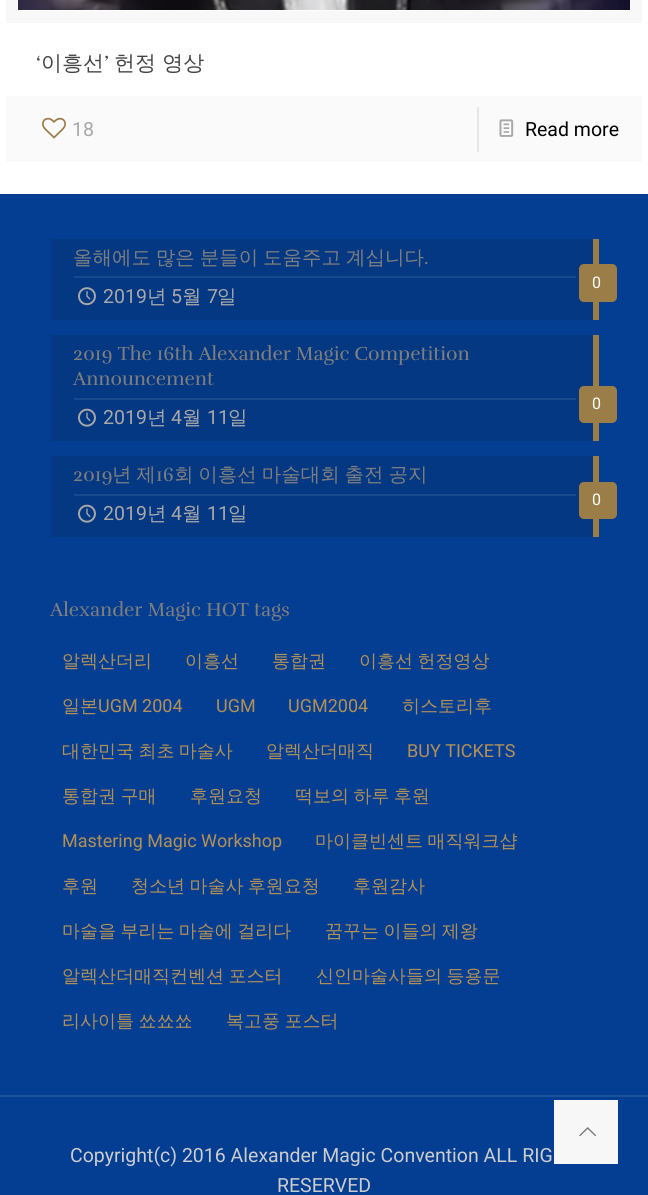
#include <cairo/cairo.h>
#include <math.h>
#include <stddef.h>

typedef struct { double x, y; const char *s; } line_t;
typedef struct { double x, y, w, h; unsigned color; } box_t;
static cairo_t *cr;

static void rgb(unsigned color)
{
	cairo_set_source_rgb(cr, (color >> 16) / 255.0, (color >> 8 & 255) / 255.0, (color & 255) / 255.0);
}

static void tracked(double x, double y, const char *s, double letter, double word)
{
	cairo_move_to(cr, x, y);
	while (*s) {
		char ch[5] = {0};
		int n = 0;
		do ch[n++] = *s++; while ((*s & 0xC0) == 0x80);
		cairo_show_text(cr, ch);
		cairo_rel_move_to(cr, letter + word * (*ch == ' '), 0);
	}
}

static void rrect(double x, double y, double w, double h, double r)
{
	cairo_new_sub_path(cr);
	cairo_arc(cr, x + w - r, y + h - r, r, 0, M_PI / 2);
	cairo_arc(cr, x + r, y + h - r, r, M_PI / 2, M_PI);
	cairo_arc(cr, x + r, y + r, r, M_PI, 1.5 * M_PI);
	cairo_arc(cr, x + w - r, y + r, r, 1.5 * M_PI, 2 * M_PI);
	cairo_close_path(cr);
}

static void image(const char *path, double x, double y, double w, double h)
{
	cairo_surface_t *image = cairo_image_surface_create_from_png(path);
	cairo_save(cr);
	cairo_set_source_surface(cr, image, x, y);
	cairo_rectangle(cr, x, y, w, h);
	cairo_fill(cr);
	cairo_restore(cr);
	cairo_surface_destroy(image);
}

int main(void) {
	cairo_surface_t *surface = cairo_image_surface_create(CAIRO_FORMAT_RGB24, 648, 1195);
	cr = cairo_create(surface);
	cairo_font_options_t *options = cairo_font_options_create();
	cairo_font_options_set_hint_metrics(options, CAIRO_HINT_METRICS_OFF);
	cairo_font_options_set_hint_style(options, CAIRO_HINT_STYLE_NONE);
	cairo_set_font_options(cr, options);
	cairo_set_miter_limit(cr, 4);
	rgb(0xffffff);
	cairo_paint(cr);
	cairo_rectangle(cr, 12, -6, 624, 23);
	rgb(0xf8f8f8);
	cairo_set_line_width(cr, 12);
	cairo_stroke(cr);
	image("img/1.png", 18, 0, 612, 10);
	rgb(0xfafafa);
	cairo_rectangle(cr, 6, 96, 636, 66);
	cairo_fill(cr);
	image("img/2.png", 42, 117, 24, 22);
	rgb(0xe6e6e6);
	cairo_rectangle(cr, 477, 107, 2, 45);
	cairo_fill(cr);
	image("img/3.png", 499, 119, 15, 18);
	{
		static const box_t items[] = {
			{0, 194, 648, 1001, 0x043e92},
			{51, 239, 542, 81, 0x043883},
			{74, 276, 502, 2, 0x18488d},
			{593, 239, 6, 81, 0x9b7d48},
		};
		for (size_t i = 0; i < sizeof items / sizeof *items; i++) {
			rgb(items[i].color);
			cairo_rectangle(cr, items[i].x, items[i].y, items[i].w, items[i].h);
			cairo_fill(cr);
		}
	}
	image("img/4.png", 78, 287, 18, 19);
	rrect(579, 264, 38, 38, 5);
	cairo_fill(cr);
	{
		static const box_t items[] = {
			{51, 335, 542, 106, 0x043883},
			{74, 398, 502, 2, 0x18488d},
			{593, 335, 6, 106, 0x9b7d48},
		};
		for (size_t i = 0; i < sizeof items / sizeof *items; i++) {
			rgb(items[i].color);
			cairo_rectangle(cr, items[i].x, items[i].y, items[i].w, items[i].h);
			cairo_fill(cr);
		}
	}
	image("img/5.png", 78, 408, 18, 19);
	rrect(579, 386, 38, 37, 5);
	cairo_fill(cr);
	{
		static const box_t items[] = {
			{51, 456, 542, 81, 0x043883},
			{74, 494, 502, 2, 0x18488d},
			{593, 456, 6, 81, 0x9b7d48},
		};
		for (size_t i = 0; i < sizeof items / sizeof *items; i++) {
			rgb(items[i].color);
			cairo_rectangle(cr, items[i].x, items[i].y, items[i].w, items[i].h);
			cairo_fill(cr);
		}
	}
	image("img/5.png", 78, 504, 18, 19);
	rrect(579, 482, 38, 37, 5);
	cairo_fill(cr);
	rgb(0x1d519d);
	cairo_rectangle(cr, 0, 1095, 648, 2);
	cairo_fill(cr);
	rgb(0xf7f7f7);
	cairo_rectangle(cr, 554, 1100, 64, 64);
	cairo_fill(cr);
	image("img/6.png", 579, 1127, 17, 10);
	cairo_select_font_face(cr, "Rufina", CAIRO_FONT_SLANT_NORMAL, CAIRO_FONT_WEIGHT_NORMAL);
	cairo_set_font_size(cr, 21);
	rgb(0x444444);
	cairo_move_to(cr, 36, 70);
	cairo_show_text(cr, "‘");
	cairo_select_font_face(cr, "WenQuanYi Zen Hei Medium", CAIRO_FONT_SLANT_NORMAL, CAIRO_FONT_WEIGHT_NORMAL);
	cairo_move_to(cr, 41, 70);
	cairo_show_text(cr, "이흥선");
	cairo_select_font_face(cr, "Rufina", CAIRO_FONT_SLANT_NORMAL, CAIRO_FONT_WEIGHT_NORMAL);
	cairo_move_to(cr, 104, 70);
	cairo_show_text(cr, "’");
	cairo_select_font_face(cr, "WenQuanYi Zen Hei Medium", CAIRO_FONT_SLANT_NORMAL, CAIRO_FONT_WEIGHT_NORMAL);
	cairo_move_to(cr, 114, 70);
	cairo_show_text(cr, "헌정 영상");
	cairo_select_font_face(cr, "Roboto", CAIRO_FONT_SLANT_NORMAL, CAIRO_FONT_WEIGHT_NORMAL);
	cairo_set_font_size(cr, 19.5);
	rgb(0xa8a8a8);
	cairo_move_to(cr, 72, 136);
	cairo_show_text(cr, "18");
	rgb(0x000000);
	cairo_move_to(cr, 525, 136);
	cairo_show_text(cr, "Read more");
	cairo_select_font_face(cr, "WenQuanYi Zen Hei Medium", CAIRO_FONT_SLANT_NORMAL, CAIRO_FONT_WEIGHT_NORMAL);
	rgb(0x7e7e7e);
	tracked(73, 264, "올해에도 많은 분들이 도움주고 계십니다", 0, -1);
	cairo_select_font_face(cr, "Rufina", CAIRO_FONT_SLANT_NORMAL, CAIRO_FONT_WEIGHT_NORMAL);
	cairo_move_to(cr, 424, 264);
	cairo_show_text(cr, ".");
	cairo_select_font_face(cr, "Roboto", CAIRO_FONT_SLANT_NORMAL, CAIRO_FONT_WEIGHT_NORMAL);
	rgb(0xa8a8a8);
	cairo_move_to(cr, 103, 303);
	cairo_show_text(cr, "2019");
	cairo_select_font_face(cr, "WenQuanYi Zen Hei Medium", CAIRO_FONT_SLANT_NORMAL, CAIRO_FONT_WEIGHT_NORMAL);
	cairo_move_to(cr, 147, 303);
	cairo_show_text(cr, "년");
	cairo_select_font_face(cr, "Roboto", CAIRO_FONT_SLANT_NORMAL, CAIRO_FONT_WEIGHT_NORMAL);
	cairo_move_to(cr, 171, 303);
	cairo_show_text(cr, "5");
	cairo_select_font_face(cr, "WenQuanYi Zen Hei Medium", CAIRO_FONT_SLANT_NORMAL, CAIRO_FONT_WEIGHT_NORMAL);
	cairo_move_to(cr, 182, 303);
	cairo_show_text(cr, "월");
	cairo_select_font_face(cr, "Roboto", CAIRO_FONT_SLANT_NORMAL, CAIRO_FONT_WEIGHT_NORMAL);
	cairo_move_to(cr, 207, 303);
	cairo_show_text(cr, "7");
	cairo_select_font_face(cr, "WenQuanYi Zen Hei Medium", CAIRO_FONT_SLANT_NORMAL, CAIRO_FONT_WEIGHT_NORMAL);
	cairo_move_to(cr, 217, 303);
	cairo_show_text(cr, "일");
	cairo_select_font_face(cr, "Roboto", CAIRO_FONT_SLANT_NORMAL, CAIRO_FONT_WEIGHT_NORMAL);
	cairo_set_font_size(cr, 16);
	rgb(0xffffff);
	cairo_move_to(cr, 592, 288);
	cairo_show_text(cr, "0");
	cairo_select_font_face(cr, "Rufina", CAIRO_FONT_SLANT_NORMAL, CAIRO_FONT_WEIGHT_NORMAL);
	cairo_set_font_size(cr, 19.5);
	rgb(0x7e7e7e);
	cairo_move_to(cr, 73, 360);
	cairo_show_text(cr, "2019 The 16th Alexander Magic Competition");
	cairo_move_to(cr, 73, 385);
	cairo_show_text(cr, "Announcement");
	cairo_select_font_face(cr, "Roboto", CAIRO_FONT_SLANT_NORMAL, CAIRO_FONT_WEIGHT_NORMAL);
	rgb(0xa8a8a8);
	cairo_move_to(cr, 103, 424);
	cairo_show_text(cr, "2019");
	cairo_select_font_face(cr, "WenQuanYi Zen Hei Medium", CAIRO_FONT_SLANT_NORMAL, CAIRO_FONT_WEIGHT_NORMAL);
	cairo_move_to(cr, 147, 424);
	cairo_show_text(cr, "년");
	cairo_select_font_face(cr, "Roboto", CAIRO_FONT_SLANT_NORMAL, CAIRO_FONT_WEIGHT_NORMAL);
	cairo_move_to(cr, 171, 424);
	cairo_show_text(cr, "4");
	cairo_select_font_face(cr, "WenQuanYi Zen Hei Medium", CAIRO_FONT_SLANT_NORMAL, CAIRO_FONT_WEIGHT_NORMAL);
	cairo_move_to(cr, 182, 424);
	cairo_show_text(cr, "월");
	cairo_select_font_face(cr, "Roboto", CAIRO_FONT_SLANT_NORMAL, CAIRO_FONT_WEIGHT_NORMAL);
	cairo_move_to(cr, 207, 424);
	cairo_show_text(cr, "11");
	cairo_select_font_face(cr, "WenQuanYi Zen Hei Medium", CAIRO_FONT_SLANT_NORMAL, CAIRO_FONT_WEIGHT_NORMAL);
	cairo_move_to(cr, 228, 424);
	cairo_show_text(cr, "일");
	cairo_select_font_face(cr, "Roboto", CAIRO_FONT_SLANT_NORMAL, CAIRO_FONT_WEIGHT_NORMAL);
	cairo_set_font_size(cr, 16);
	rgb(0xffffff);
	cairo_move_to(cr, 592, 409);
	cairo_show_text(cr, "0");
	cairo_select_font_face(cr, "Rufina", CAIRO_FONT_SLANT_NORMAL, CAIRO_FONT_WEIGHT_NORMAL);
	cairo_set_font_size(cr, 19.5);
	rgb(0x7e7e7e);
	cairo_move_to(cr, 73, 481);
	cairo_show_text(cr, "2019");
	cairo_select_font_face(cr, "WenQuanYi Zen Hei Medium", CAIRO_FONT_SLANT_NORMAL, CAIRO_FONT_WEIGHT_NORMAL);
	tracked(112, 481, "년 제", 0, -1);
	cairo_select_font_face(cr, "Rufina", CAIRO_FONT_SLANT_NORMAL, CAIRO_FONT_WEIGHT_NORMAL);
	cairo_move_to(cr, 156, 481);
	cairo_show_text(cr, "16");
	cairo_select_font_face(cr, "WenQuanYi Zen Hei Medium", CAIRO_FONT_SLANT_NORMAL, CAIRO_FONT_WEIGHT_NORMAL);
	tracked(174, 481, "회 이흥선 마술대회 출전 공지", 0, -1);
	cairo_select_font_face(cr, "Roboto", CAIRO_FONT_SLANT_NORMAL, CAIRO_FONT_WEIGHT_NORMAL);
	rgb(0xa8a8a8);
	cairo_move_to(cr, 103, 520);
	cairo_show_text(cr, "2019");
	cairo_select_font_face(cr, "WenQuanYi Zen Hei Medium", CAIRO_FONT_SLANT_NORMAL, CAIRO_FONT_WEIGHT_NORMAL);
	cairo_move_to(cr, 147, 520);
	cairo_show_text(cr, "년");
	cairo_select_font_face(cr, "Roboto", CAIRO_FONT_SLANT_NORMAL, CAIRO_FONT_WEIGHT_NORMAL);
	cairo_move_to(cr, 171, 520);
	cairo_show_text(cr, "4");
	cairo_select_font_face(cr, "WenQuanYi Zen Hei Medium", CAIRO_FONT_SLANT_NORMAL, CAIRO_FONT_WEIGHT_NORMAL);
	cairo_move_to(cr, 182, 520);
	cairo_show_text(cr, "월");
	cairo_select_font_face(cr, "Roboto", CAIRO_FONT_SLANT_NORMAL, CAIRO_FONT_WEIGHT_NORMAL);
	cairo_move_to(cr, 207, 520);
	cairo_show_text(cr, "11");
	cairo_select_font_face(cr, "WenQuanYi Zen Hei Medium", CAIRO_FONT_SLANT_NORMAL, CAIRO_FONT_WEIGHT_NORMAL);
	cairo_move_to(cr, 228, 520);
	cairo_show_text(cr, "일");
	cairo_select_font_face(cr, "Roboto", CAIRO_FONT_SLANT_NORMAL, CAIRO_FONT_WEIGHT_NORMAL);
	cairo_set_font_size(cr, 16);
	rgb(0xffffff);
	cairo_move_to(cr, 592, 505);
	cairo_show_text(cr, "0");
	cairo_select_font_face(cr, "Rufina", CAIRO_FONT_SLANT_NORMAL, CAIRO_FONT_WEIGHT_NORMAL);
	cairo_set_font_size(cr, 19.5);
	rgb(0x7e7e7e);
	cairo_move_to(cr, 50, 616);
	cairo_show_text(cr, "Alexander Magic HOT tags");
	cairo_select_font_face(cr, "WenQuanYi Zen Hei Medium", CAIRO_FONT_SLANT_NORMAL, CAIRO_FONT_WEIGHT_NORMAL);
	cairo_set_font_size(cr, 18);
	rgb(0xb29055);
	{
		static const line_t items[] = {
			{62, 667, "알렉산더리"},
			{185, 667, "이흥선"},
			{272, 667, "통합권"},
		};
		for (size_t i = 0; i < sizeof items / sizeof *items; i++) {
			cairo_move_to(cr, items[i].x, items[i].y);
			cairo_show_text(cr, items[i].s);
		}
	}
	tracked(359, 667, "이흥선 헌정영상", 0, -1);
	cairo_move_to(cr, 62, 712);
	cairo_show_text(cr, "일본");
	cairo_select_font_face(cr, "Roboto", CAIRO_FONT_SLANT_NORMAL, CAIRO_FONT_WEIGHT_NORMAL);
	{
		static const line_t items[] = {
			{98, 712, "UGM 2004"},
			{216, 712, "UGM"},
			{288, 712, "UGM2004"},
		};
		for (size_t i = 0; i < sizeof items / sizeof *items; i++) {
			cairo_move_to(cr, items[i].x, items[i].y);
			cairo_show_text(cr, items[i].s);
		}
	}
	cairo_select_font_face(cr, "WenQuanYi Zen Hei Medium", CAIRO_FONT_SLANT_NORMAL, CAIRO_FONT_WEIGHT_NORMAL);
	cairo_move_to(cr, 402, 712);
	cairo_show_text(cr, "히스토리후");
	tracked(62, 757, "대한민국 최초 마술사", 0, -1);
	cairo_move_to(cr, 266, 757);
	cairo_show_text(cr, "알렉산더매직");
	cairo_select_font_face(cr, "Roboto", CAIRO_FONT_SLANT_NORMAL, CAIRO_FONT_WEIGHT_NORMAL);
	cairo_move_to(cr, 407, 757);
	cairo_show_text(cr, "BUY TICKETS");
	cairo_select_font_face(cr, "WenQuanYi Zen Hei Medium", CAIRO_FONT_SLANT_NORMAL, CAIRO_FONT_WEIGHT_NORMAL);
	tracked(62, 802, "통합권 구매", 0, -1);
	cairo_move_to(cr, 190, 802);
	cairo_show_text(cr, "후원요청");
	tracked(295, 802, "떡보의 하루 후원", 0, -1);
	cairo_select_font_face(cr, "Roboto", CAIRO_FONT_SLANT_NORMAL, CAIRO_FONT_WEIGHT_NORMAL);
	cairo_move_to(cr, 62, 847);
	cairo_show_text(cr, "Mastering Magic Workshop");
	cairo_select_font_face(cr, "WenQuanYi Zen Hei Medium", CAIRO_FONT_SLANT_NORMAL, CAIRO_FONT_WEIGHT_NORMAL);
	tracked(315, 847, "마이클빈센트 매직워크샵", 0, -1);
	cairo_move_to(cr, 62, 892);
	cairo_show_text(cr, "후원");
	tracked(131, 892, "청소년 마술사 후원요청", 0, -1);
	cairo_move_to(cr, 353, 892);
	cairo_show_text(cr, "후원감사");
	{
		static const line_t items[] = {
			{62, 937, "마술을 부리는 마술에 걸리다"},
			{325, 937, "꿈꾸는 이들의 제왕"},
			{62, 982, "알렉산더매직컨벤션 포스터"},
			{316, 982, "신인마술사들의 등용문"},
			{62, 1027, "리사이틀 쑈쑈쑈"},
			{226, 1027, "복고풍 포스터"},
		};
		for (size_t i = 0; i < sizeof items / sizeof *items; i++) {
			tracked(items[i].x, items[i].y, items[i].s, 0, -1);
		}
	}
	cairo_select_font_face(cr, "Roboto", CAIRO_FONT_SLANT_NORMAL, CAIRO_FONT_WEIGHT_NORMAL);
	cairo_set_font_size(cr, 19.5);
	rgb(0xcccccc);
	cairo_move_to(cr, 70, 1162);
	cairo_show_text(cr, "Copyright(c) 2016 Alexander Magic Convention ALL RIG");
	cairo_move_to(cr, 277, 1192);
	cairo_show_text(cr, "RESERVED");
	cairo_surface_write_to_png(surface, "page.png");
	cairo_font_options_destroy(options);
	cairo_destroy(cr);
	cairo_surface_destroy(surface);
	return 0;
}
